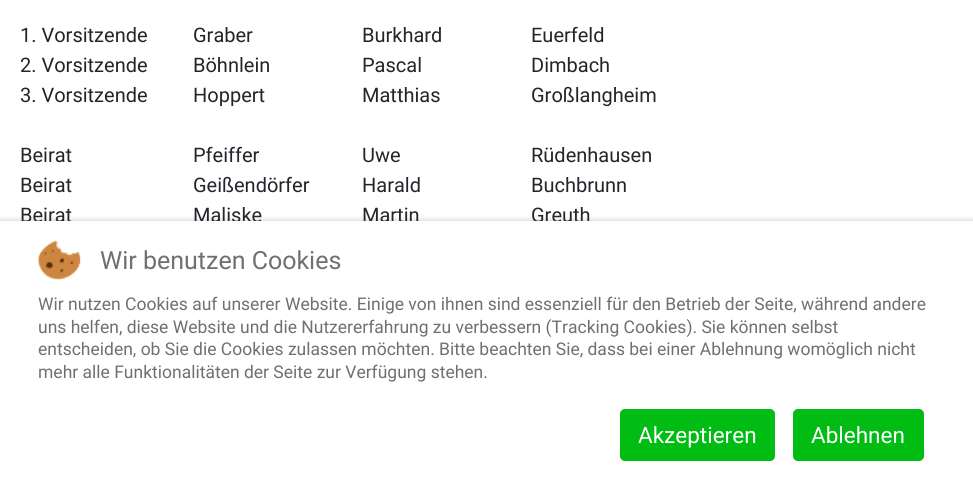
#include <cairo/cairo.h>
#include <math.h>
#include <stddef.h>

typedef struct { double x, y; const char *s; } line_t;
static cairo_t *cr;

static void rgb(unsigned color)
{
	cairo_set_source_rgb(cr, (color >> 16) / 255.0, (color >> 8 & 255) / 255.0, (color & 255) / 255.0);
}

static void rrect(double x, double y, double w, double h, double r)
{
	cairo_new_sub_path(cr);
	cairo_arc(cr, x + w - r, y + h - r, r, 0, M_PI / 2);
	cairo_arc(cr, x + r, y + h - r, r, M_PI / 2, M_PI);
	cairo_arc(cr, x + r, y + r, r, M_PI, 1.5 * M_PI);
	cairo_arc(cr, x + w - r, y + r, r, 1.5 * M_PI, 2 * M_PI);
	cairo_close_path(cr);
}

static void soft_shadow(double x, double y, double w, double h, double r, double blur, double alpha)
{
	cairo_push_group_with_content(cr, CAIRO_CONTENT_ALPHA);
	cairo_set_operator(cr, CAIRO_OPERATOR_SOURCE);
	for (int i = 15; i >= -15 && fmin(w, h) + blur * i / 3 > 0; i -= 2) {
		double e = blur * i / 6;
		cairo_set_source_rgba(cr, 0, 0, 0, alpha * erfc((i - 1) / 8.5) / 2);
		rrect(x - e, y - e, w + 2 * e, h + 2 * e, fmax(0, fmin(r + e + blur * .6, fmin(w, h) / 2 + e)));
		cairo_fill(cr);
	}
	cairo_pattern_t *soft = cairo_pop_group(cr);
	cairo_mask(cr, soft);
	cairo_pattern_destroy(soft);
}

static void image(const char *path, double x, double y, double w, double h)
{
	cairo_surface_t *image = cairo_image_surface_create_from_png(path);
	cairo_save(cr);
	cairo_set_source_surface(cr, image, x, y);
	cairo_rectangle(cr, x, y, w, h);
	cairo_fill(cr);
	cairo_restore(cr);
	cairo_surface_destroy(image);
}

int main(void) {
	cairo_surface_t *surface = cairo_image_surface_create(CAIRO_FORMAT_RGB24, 973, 480);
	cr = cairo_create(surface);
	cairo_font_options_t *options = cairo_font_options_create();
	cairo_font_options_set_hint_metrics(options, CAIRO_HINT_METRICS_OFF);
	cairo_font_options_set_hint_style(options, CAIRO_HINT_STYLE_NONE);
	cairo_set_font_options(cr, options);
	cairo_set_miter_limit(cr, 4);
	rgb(0xffffff);
	cairo_paint(cr);
	rgb(0x000000);
	soft_shadow(0, 221, 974, 259, 0, 3, 0.25);
	cairo_select_font_face(cr, "Roboto", CAIRO_FONT_SLANT_NORMAL, CAIRO_FONT_WEIGHT_NORMAL);
	cairo_set_font_size(cr, 20);
	rgb(0x22262a);
	{
		static const line_t items[] = {
			{20, 42, "1. Vorsitzende"},
			{193, 42, "Graber"},
			{362, 42, "Burkhard"},
			{531, 42, "Euerfeld"},
			{20, 72, "2. Vorsitzende"},
			{193, 72, "Böhnlein"},
			{362, 72, "Pascal"},
			{531, 72, "Dimbach"},
			{20, 102, "3. Vorsitzende"},
			{193, 102, "Hoppert"},
			{362, 102, "Matthias"},
			{531, 102, "Großlangheim"},
			{20, 162, "Beirat"},
			{193, 162, "Pfeiffer"},
			{362, 162, "Uwe"},
			{531, 162, "Rüdenhausen"},
			{20, 192, "Beirat"},
			{193, 192, "Geißendörfer"},
			{362, 192, "Harald"},
			{531, 192, "Buchbrunn"},
			{20, 222, "Beirat"},
			{193, 222, "Maliske"},
			{362, 222, "Martin"},
			{531, 222, "Greuth"},
		};
		for (size_t i = 0; i < sizeof items / sizeof *items; i++) {
			cairo_move_to(cr, items[i].x, items[i].y);
			cairo_show_text(cr, items[i].s);
		}
	}
	rgb(0xffffff);
	cairo_rectangle(cr, 0, 221, 973, 259);
	cairo_fill(cr);
	image("img/1.png", 37, 240, 45, 40);
	cairo_set_font_size(cr, 25);
	rgb(0x707070);
	cairo_move_to(cr, 100, 269);
	cairo_show_text(cr, "Wir benutzen Cookies");
	cairo_set_font_size(cr, 17.5);
	{
		static const line_t items[] = {
			{38, 310, "Wir nutzen Cookies auf unserer Website. Einige von ihnen sind essenziell für den Betrieb der Seite, während andere"},
			{38, 333, "uns helfen, diese Website und die Nutzererfahrung zu verbessern (Tracking Cookies). Sie können selbst"},
			{38, 355, "entscheiden, ob Sie die Cookies zulassen möchten. Bitte beachten Sie, dass bei einer Ablehnung womöglich nicht"},
			{38, 378, "mehr alle Funktionalitäten der Seite zur Verfügung stehen."},
		};
		for (size_t i = 0; i < sizeof items / sizeof *items; i++) {
			cairo_move_to(cr, items[i].x, items[i].y);
			cairo_show_text(cr, items[i].s);
		}
	}
	rgb(0x00bc13);
	rrect(620, 409, 155, 52, 5);
	cairo_fill(cr);
	cairo_set_font_size(cr, 22.5);
	rgb(0xffffff);
	cairo_move_to(cr, 638, 443);
	cairo_show_text(cr, "Akzeptieren");
	rgb(0x00bc13);
	rrect(793, 409, 131, 52, 5);
	cairo_fill(cr);
	rgb(0xffffff);
	cairo_move_to(cr, 811, 443);
	cairo_show_text(cr, "Ablehnen");
	cairo_surface_write_to_png(surface, "page.png");
	cairo_font_options_destroy(options);
	cairo_destroy(cr);
	cairo_surface_destroy(surface);
	return 0;
}
